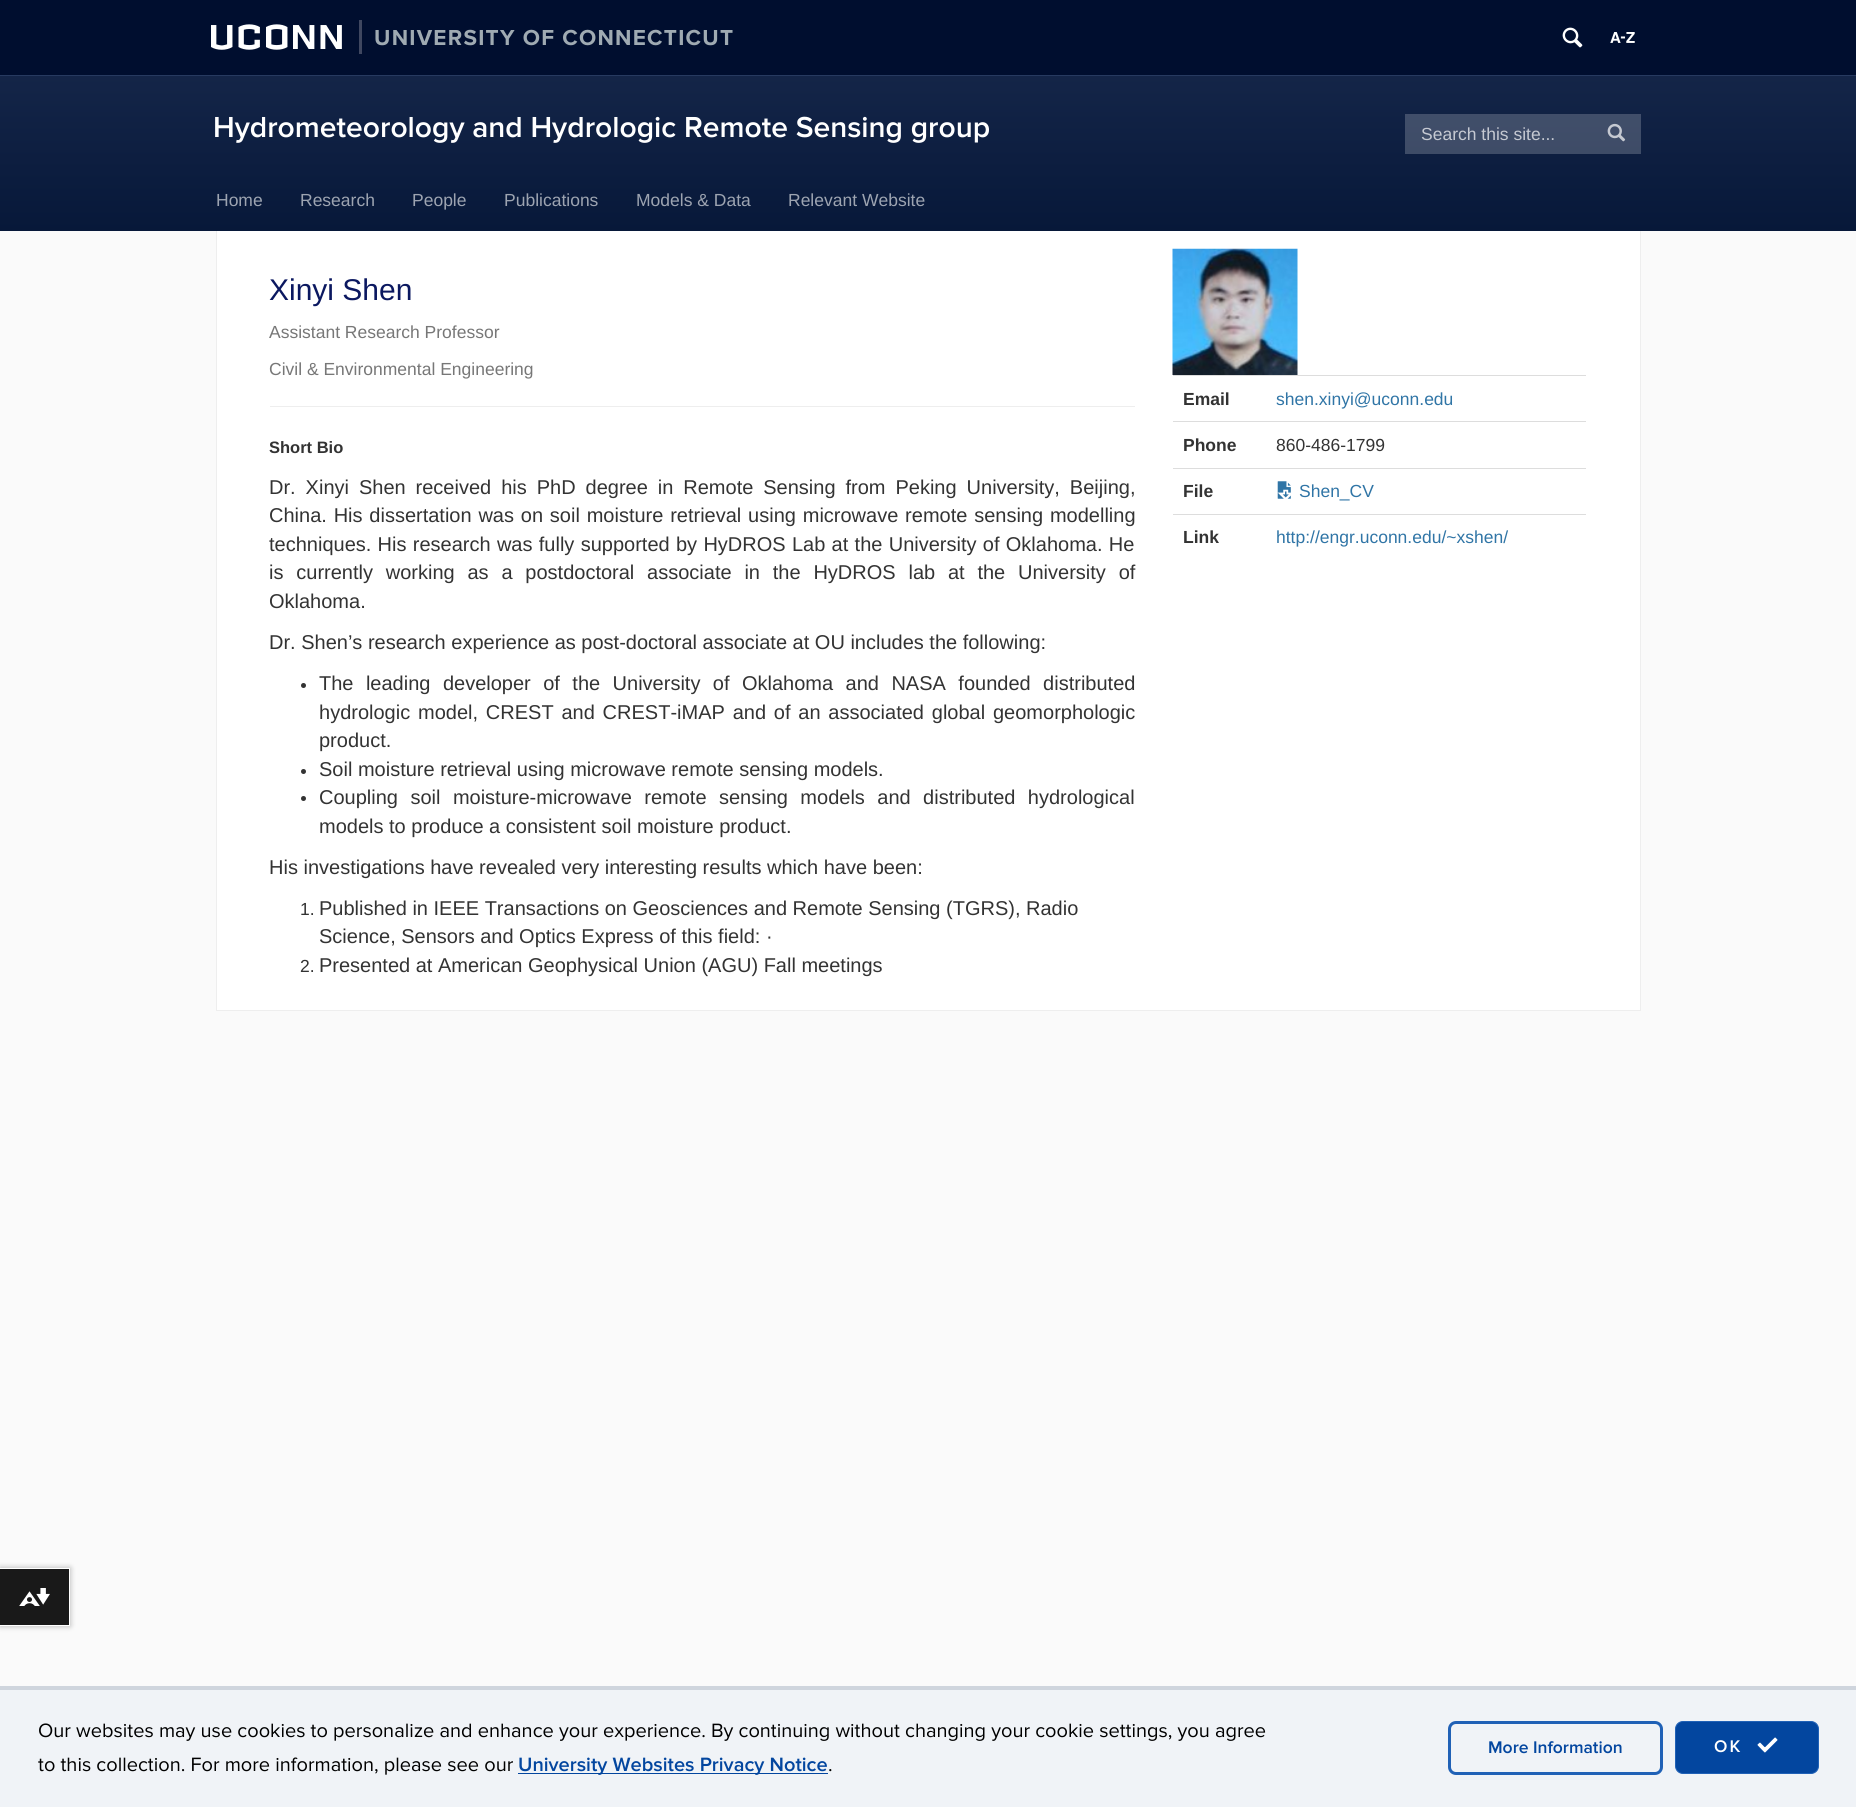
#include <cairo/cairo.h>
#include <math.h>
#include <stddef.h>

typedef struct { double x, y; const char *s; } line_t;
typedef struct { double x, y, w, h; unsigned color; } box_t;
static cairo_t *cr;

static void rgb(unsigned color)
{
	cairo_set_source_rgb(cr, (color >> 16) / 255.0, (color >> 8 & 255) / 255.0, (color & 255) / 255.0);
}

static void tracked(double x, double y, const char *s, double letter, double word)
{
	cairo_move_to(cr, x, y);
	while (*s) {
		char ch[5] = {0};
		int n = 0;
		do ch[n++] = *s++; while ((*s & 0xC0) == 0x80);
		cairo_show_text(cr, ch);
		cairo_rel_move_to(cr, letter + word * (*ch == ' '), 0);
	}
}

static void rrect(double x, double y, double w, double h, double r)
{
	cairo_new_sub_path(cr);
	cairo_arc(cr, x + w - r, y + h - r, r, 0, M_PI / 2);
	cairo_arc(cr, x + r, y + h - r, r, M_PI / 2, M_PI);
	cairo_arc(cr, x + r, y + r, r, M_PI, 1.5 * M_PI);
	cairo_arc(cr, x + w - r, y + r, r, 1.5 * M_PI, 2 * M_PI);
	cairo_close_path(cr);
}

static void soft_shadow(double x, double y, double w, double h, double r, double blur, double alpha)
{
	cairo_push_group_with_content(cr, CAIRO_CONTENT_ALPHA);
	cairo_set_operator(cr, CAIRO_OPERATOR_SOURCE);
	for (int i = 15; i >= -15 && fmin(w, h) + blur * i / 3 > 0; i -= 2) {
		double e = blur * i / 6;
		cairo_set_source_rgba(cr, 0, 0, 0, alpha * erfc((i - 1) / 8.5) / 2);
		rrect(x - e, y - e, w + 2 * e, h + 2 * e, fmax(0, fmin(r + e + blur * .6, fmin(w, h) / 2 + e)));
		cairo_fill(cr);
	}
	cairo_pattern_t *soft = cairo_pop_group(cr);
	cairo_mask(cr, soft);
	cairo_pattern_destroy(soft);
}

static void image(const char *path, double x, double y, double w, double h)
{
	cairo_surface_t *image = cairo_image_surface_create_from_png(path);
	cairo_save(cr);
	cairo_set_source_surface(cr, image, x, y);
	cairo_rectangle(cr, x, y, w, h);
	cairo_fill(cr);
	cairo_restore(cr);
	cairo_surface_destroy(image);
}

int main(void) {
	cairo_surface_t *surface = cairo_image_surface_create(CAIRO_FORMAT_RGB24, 1856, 1807);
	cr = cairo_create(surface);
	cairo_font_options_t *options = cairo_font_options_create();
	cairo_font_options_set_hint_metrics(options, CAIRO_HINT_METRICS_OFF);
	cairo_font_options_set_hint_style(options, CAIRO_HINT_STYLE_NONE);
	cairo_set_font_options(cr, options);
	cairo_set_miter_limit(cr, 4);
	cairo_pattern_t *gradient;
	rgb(0xfafafa);
	cairo_paint(cr);
	{
		static const box_t items[] = {
			{0, 0, 1856, 75, 0x000e2f},
			{0, 75, 1856, 1, 0x273a60},
			{359, 20, 3, 34, 0x3f4760},
		};
		for (size_t i = 0; i < sizeof items / sizeof *items; i++) {
			rgb(items[i].color);
			cairo_rectangle(cr, items[i].x, items[i].y, items[i].w, items[i].h);
			cairo_fill(cr);
		}
	}
	image("img/1.png", 1562, 27, 21, 21);
	image("img/2.png", 1610, 32, 25, 11);
	gradient = cairo_pattern_create_linear(928, 76, 928, 231);
	cairo_pattern_add_color_stop_rgba(gradient, 0, 0.078, 0.145, 0.282, 1);
	cairo_pattern_add_color_stop_rgba(gradient, 1, 0.027, 0.094, 0.224, 1);
	cairo_set_source(cr, gradient);
	cairo_pattern_destroy(gradient);
	cairo_rectangle(cr, 0, 76, 1856, 155);
	cairo_fill(cr);
	gradient = cairo_pattern_create_linear(928, 76, 928, 231);
	cairo_pattern_add_color_stop_rgba(gradient, 0, 0.263, 0.318, 0.427, 1);
	cairo_pattern_add_color_stop_rgba(gradient, 1, 0.224, 0.275, 0.38, 1);
	cairo_set_source(cr, gradient);
	cairo_pattern_destroy(gradient);
	cairo_rectangle(cr, 1593, 114, 48, 40);
	cairo_fill(cr);
	cairo_rectangle(cr, 1405, 114, 188, 40);
	cairo_fill(cr);
	image("img/3.png", 1607, 123, 19, 19);
	{
		static const box_t items[] = {
			{217, 231, 1423, 779, 0xffffff},
			{1640, 231, 1, 780, 0xeeeeee},
			{216, 1010, 1425, 1, 0xeeeeee},
			{216, 231, 1, 780, 0xeeeeee},
			{270, 406, 865, 1, 0xeeeeee},
		};
		for (size_t i = 0; i < sizeof items / sizeof *items; i++) {
			rgb(items[i].color);
			cairo_rectangle(cr, items[i].x, items[i].y, items[i].w, items[i].h);
			cairo_fill(cr);
		}
	}
	rgb(0x333333);
	cairo_arc(cr, 303.5, 685.5, 2.5, 0, 2 * M_PI);
	cairo_fill(cr);
	cairo_arc(cr, 303.5, 771.5, 2.5, 0, 2 * M_PI);
	cairo_fill(cr);
	cairo_arc(cr, 303.5, 798.5, 2.5, 0, 2 * M_PI);
	cairo_fill(cr);
	image("img/4.png", 1172, 248, 126, 127);
	{
		static const box_t items[] = {
			{1173, 375, 413, 1, 0xdddddd},
			{1173, 421, 413, 1, 0xdddddd},
			{1173, 468, 413, 1, 0xdddddd},
		};
		for (size_t i = 0; i < sizeof items / sizeof *items; i++) {
			rgb(items[i].color);
			cairo_rectangle(cr, items[i].x, items[i].y, items[i].w, items[i].h);
			cairo_fill(cr);
		}
	}
	image("img/5.png", 1277, 481, 14, 18);
	cairo_rectangle(cr, 1173, 514, 413, 1);
	cairo_fill(cr);
	rgb(0x000000);
	soft_shadow(0, 1568, 70, 58, 0, 3, 0.3);
	{
		static const box_t items[] = {
			{0, 1569, 69, 56, 0x191919},
			{0, 1568, 70, 1, 0xffffff},
			{69, 1568, 1, 58, 0xffffff},
			{0, 1625, 70, 1, 0xffffff},
		};
		for (size_t i = 0; i < sizeof items / sizeof *items; i++) {
			rgb(items[i].color);
			cairo_rectangle(cr, items[i].x, items[i].y, items[i].w, items[i].h);
			cairo_fill(cr);
		}
	}
	image("img/6.png", 19, 1588, 31, 18);
	{
		static const box_t items[] = {
			{0, 1690, 1856, 117, 0xf0f3f7},
			{0, 1686, 1856, 4, 0xcfd5dd},
			{518, 1773, 310, 1, 0x03469f},
		};
		for (size_t i = 0; i < sizeof items / sizeof *items; i++) {
			rgb(items[i].color);
			cairo_rectangle(cr, items[i].x, items[i].y, items[i].w, items[i].h);
			cairo_fill(cr);
		}
	}
	rrect(1449.5, 1722.5, 212, 51, 6.5);
	rgb(0x2061b6);
	cairo_set_line_width(cr, 3);
	cairo_stroke(cr);
	rgb(0x03469f);
	rrect(1675.5, 1721.5, 143, 52, 7.5);
	cairo_fill_preserve(cr);
	rgb(0x2061b6);
	cairo_set_line_width(cr, 1);
	cairo_stroke(cr);
	image("img/7.png", 1757, 1737, 21, 16);
	cairo_select_font_face(cr, "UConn", CAIRO_FONT_SLANT_NORMAL, CAIRO_FONT_WEIGHT_NORMAL);
	cairo_set_font_size(cr, 40);
	rgb(0xffffff);
	tracked(211, 49, "UCONN", 3.75, 0);
	cairo_select_font_face(cr, "Proxima Nova", CAIRO_FONT_SLANT_NORMAL, CAIRO_FONT_WEIGHT_BOLD);
	cairo_set_font_size(cr, 22.5);
	rgb(0x9faab2);
	tracked(374, 45, "UNIVERSITY OF CONNECTICUT", 1.25, 0);
	cairo_select_font_face(cr, "Proxima Nova SemiBold", CAIRO_FONT_SLANT_NORMAL, CAIRO_FONT_WEIGHT_NORMAL);
	cairo_set_font_size(cr, 30);
	rgb(0xffffff);
	cairo_move_to(cr, 213, 137);
	cairo_show_text(cr, "Hydrometeorology and Hydrologic Remote Sensing group");
	cairo_select_font_face(cr, "Liberation Sans", CAIRO_FONT_SLANT_NORMAL, CAIRO_FONT_WEIGHT_NORMAL);
	cairo_set_font_size(cr, 17.5);
	rgb(0xc5c9d2);
	cairo_move_to(cr, 1421, 140);
	cairo_show_text(cr, "Search this site...");
	rgb(0x9da4b1);
	{
		static const line_t items[] = {
			{216, 206, "Home"},
			{300, 206, "Research"},
			{412, 206, "People"},
			{504, 206, "Publications"},
			{636, 206, "Models & Data"},
			{788, 206, "Relevant Website"},
		};
		for (size_t i = 0; i < sizeof items / sizeof *items; i++) {
			cairo_move_to(cr, items[i].x, items[i].y);
			cairo_show_text(cr, items[i].s);
		}
	}
	cairo_set_font_size(cr, 30);
	rgb(0x0b1860);
	cairo_move_to(cr, 269, 300);
	cairo_show_text(cr, "Xinyi Shen");
	cairo_set_font_size(cr, 17.5);
	rgb(0x777777);
	cairo_move_to(cr, 269, 338);
	cairo_show_text(cr, "Assistant Research Professor");
	cairo_move_to(cr, 269, 375);
	cairo_show_text(cr, "Civil & Environmental Engineering");
	cairo_select_font_face(cr, "Liberation Sans", CAIRO_FONT_SLANT_NORMAL, CAIRO_FONT_WEIGHT_BOLD);
	cairo_set_font_size(cr, 16.5);
	rgb(0x333333);
	cairo_move_to(cr, 269, 453);
	cairo_show_text(cr, "Short Bio");
	cairo_select_font_face(cr, "Liberation Sans", CAIRO_FONT_SLANT_NORMAL, CAIRO_FONT_WEIGHT_NORMAL);
	cairo_set_font_size(cr, 20);
	tracked(269, 494, "Dr. Xinyi Shen received his PhD degree in Remote Sensing from Peking University, Beijing,", 0, 4.4);
	tracked(269, 522, "China. His dissertation was on soil moisture retrieval using microwave remote sensing modelling", 0, 1.25);
	tracked(269, 551, "techniques. His research was fully supported by HyDROS Lab at the University of Oklahoma. He", 0, 0.75);
	tracked(269, 579, "is currently working as a postdoctoral associate in the HyDROS lab at the University of", 0, 7.25);
	cairo_move_to(cr, 269, 608);
	cairo_show_text(cr, "Oklahoma.");
	cairo_move_to(cr, 269, 649);
	cairo_show_text(cr, "Dr. Shen’s research experience as post-doctoral associate at OU includes the following:");
	tracked(319, 690, "The leading developer of the University of Oklahoma and NASA founded distributed", 0, 6.9);
	tracked(319, 719, "hydrologic model, CREST and CREST-iMAP and of an associated global geomorphologic", 0, 2.25);
	cairo_move_to(cr, 319, 747);
	cairo_show_text(cr, "product.");
	cairo_move_to(cr, 319, 776);
	cairo_show_text(cr, "Soil moisture retrieval using microwave remote sensing models.");
	tracked(319, 804, "Coupling soil moisture-microwave remote sensing models and distributed hydrological", 0, 6.9);
	cairo_move_to(cr, 319, 833);
	cairo_show_text(cr, "models to produce a consistent soil moisture product.");
	cairo_move_to(cr, 269, 874);
	cairo_show_text(cr, "His investigations have revealed very interesting results which have been:");
	cairo_set_font_size(cr, 17.5);
	cairo_move_to(cr, 300, 915);
	cairo_show_text(cr, "1.");
	cairo_set_font_size(cr, 20);
	cairo_move_to(cr, 319, 915);
	cairo_show_text(cr, "Published in IEEE Transactions on Geosciences and Remote Sensing (TGRS), Radio");
	cairo_move_to(cr, 319, 943);
	cairo_show_text(cr, "Science, Sensors and Optics Express of this field: ·");
	cairo_set_font_size(cr, 17.5);
	cairo_move_to(cr, 300, 972);
	cairo_show_text(cr, "2.");
	cairo_set_font_size(cr, 20);
	cairo_move_to(cr, 319, 972);
	cairo_show_text(cr, "Presented at American Geophysical Union (AGU) Fall meetings");
	cairo_select_font_face(cr, "Liberation Sans", CAIRO_FONT_SLANT_NORMAL, CAIRO_FONT_WEIGHT_BOLD);
	cairo_set_font_size(cr, 17.5);
	cairo_move_to(cr, 1183, 405);
	cairo_show_text(cr, "Email");
	cairo_select_font_face(cr, "Liberation Sans", CAIRO_FONT_SLANT_NORMAL, CAIRO_FONT_WEIGHT_NORMAL);
	rgb(0x3075a6);
	cairo_move_to(cr, 1276, 405);
	cairo_show_text(cr, "shen.xinyi@uconn.edu");
	cairo_select_font_face(cr, "Liberation Sans", CAIRO_FONT_SLANT_NORMAL, CAIRO_FONT_WEIGHT_BOLD);
	rgb(0x333333);
	cairo_move_to(cr, 1183, 451);
	cairo_show_text(cr, "Phone");
	cairo_select_font_face(cr, "Liberation Sans", CAIRO_FONT_SLANT_NORMAL, CAIRO_FONT_WEIGHT_NORMAL);
	cairo_move_to(cr, 1276, 451);
	cairo_show_text(cr, "860-486-1799");
	cairo_select_font_face(cr, "Liberation Sans", CAIRO_FONT_SLANT_NORMAL, CAIRO_FONT_WEIGHT_BOLD);
	cairo_move_to(cr, 1183, 497);
	cairo_show_text(cr, "File");
	cairo_select_font_face(cr, "Liberation Sans", CAIRO_FONT_SLANT_NORMAL, CAIRO_FONT_WEIGHT_NORMAL);
	rgb(0x3075a6);
	cairo_move_to(cr, 1299, 497);
	cairo_show_text(cr, "Shen_CV");
	cairo_select_font_face(cr, "Liberation Sans", CAIRO_FONT_SLANT_NORMAL, CAIRO_FONT_WEIGHT_BOLD);
	rgb(0x333333);
	cairo_move_to(cr, 1183, 543);
	cairo_show_text(cr, "Link");
	cairo_select_font_face(cr, "Liberation Sans", CAIRO_FONT_SLANT_NORMAL, CAIRO_FONT_WEIGHT_NORMAL);
	rgb(0x3075a6);
	cairo_move_to(cr, 1276, 543);
	cairo_show_text(cr, "http://engr.uconn.edu/~xshen/");
	cairo_select_font_face(cr, "Proxima Nova", CAIRO_FONT_SLANT_NORMAL, CAIRO_FONT_WEIGHT_NORMAL);
	cairo_set_font_size(cr, 20);
	rgb(0x000000);
	cairo_move_to(cr, 38, 1737);
	cairo_show_text(cr, "Our websites may use cookies to personalize and enhance your experience. By continuing without changing your cookie settings, you agree");
	cairo_move_to(cr, 38, 1771);
	cairo_show_text(cr, "to this collection. For more information, please see our");
	cairo_select_font_face(cr, "Proxima Nova SemiBold", CAIRO_FONT_SLANT_NORMAL, CAIRO_FONT_WEIGHT_NORMAL);
	rgb(0x03469f);
	cairo_move_to(cr, 518, 1771);
	cairo_show_text(cr, "University Websites Privacy Notice");
	cairo_select_font_face(cr, "Proxima Nova", CAIRO_FONT_SLANT_NORMAL, CAIRO_FONT_WEIGHT_NORMAL);
	rgb(0x000000);
	cairo_move_to(cr, 828, 1771);
	cairo_show_text(cr, ".");
	cairo_select_font_face(cr, "Proxima Nova SemiBold", CAIRO_FONT_SLANT_NORMAL, CAIRO_FONT_WEIGHT_NORMAL);
	cairo_set_font_size(cr, 17.5);
	rgb(0x03469f);
	cairo_move_to(cr, 1488, 1753);
	cairo_show_text(cr, "More Information");
	rgb(0xffffff);
	tracked(1714, 1752, "OK", 2, 0);
	cairo_surface_write_to_png(surface, "page.png");
	cairo_font_options_destroy(options);
	cairo_destroy(cr);
	cairo_surface_destroy(surface);
	return 0;
}
